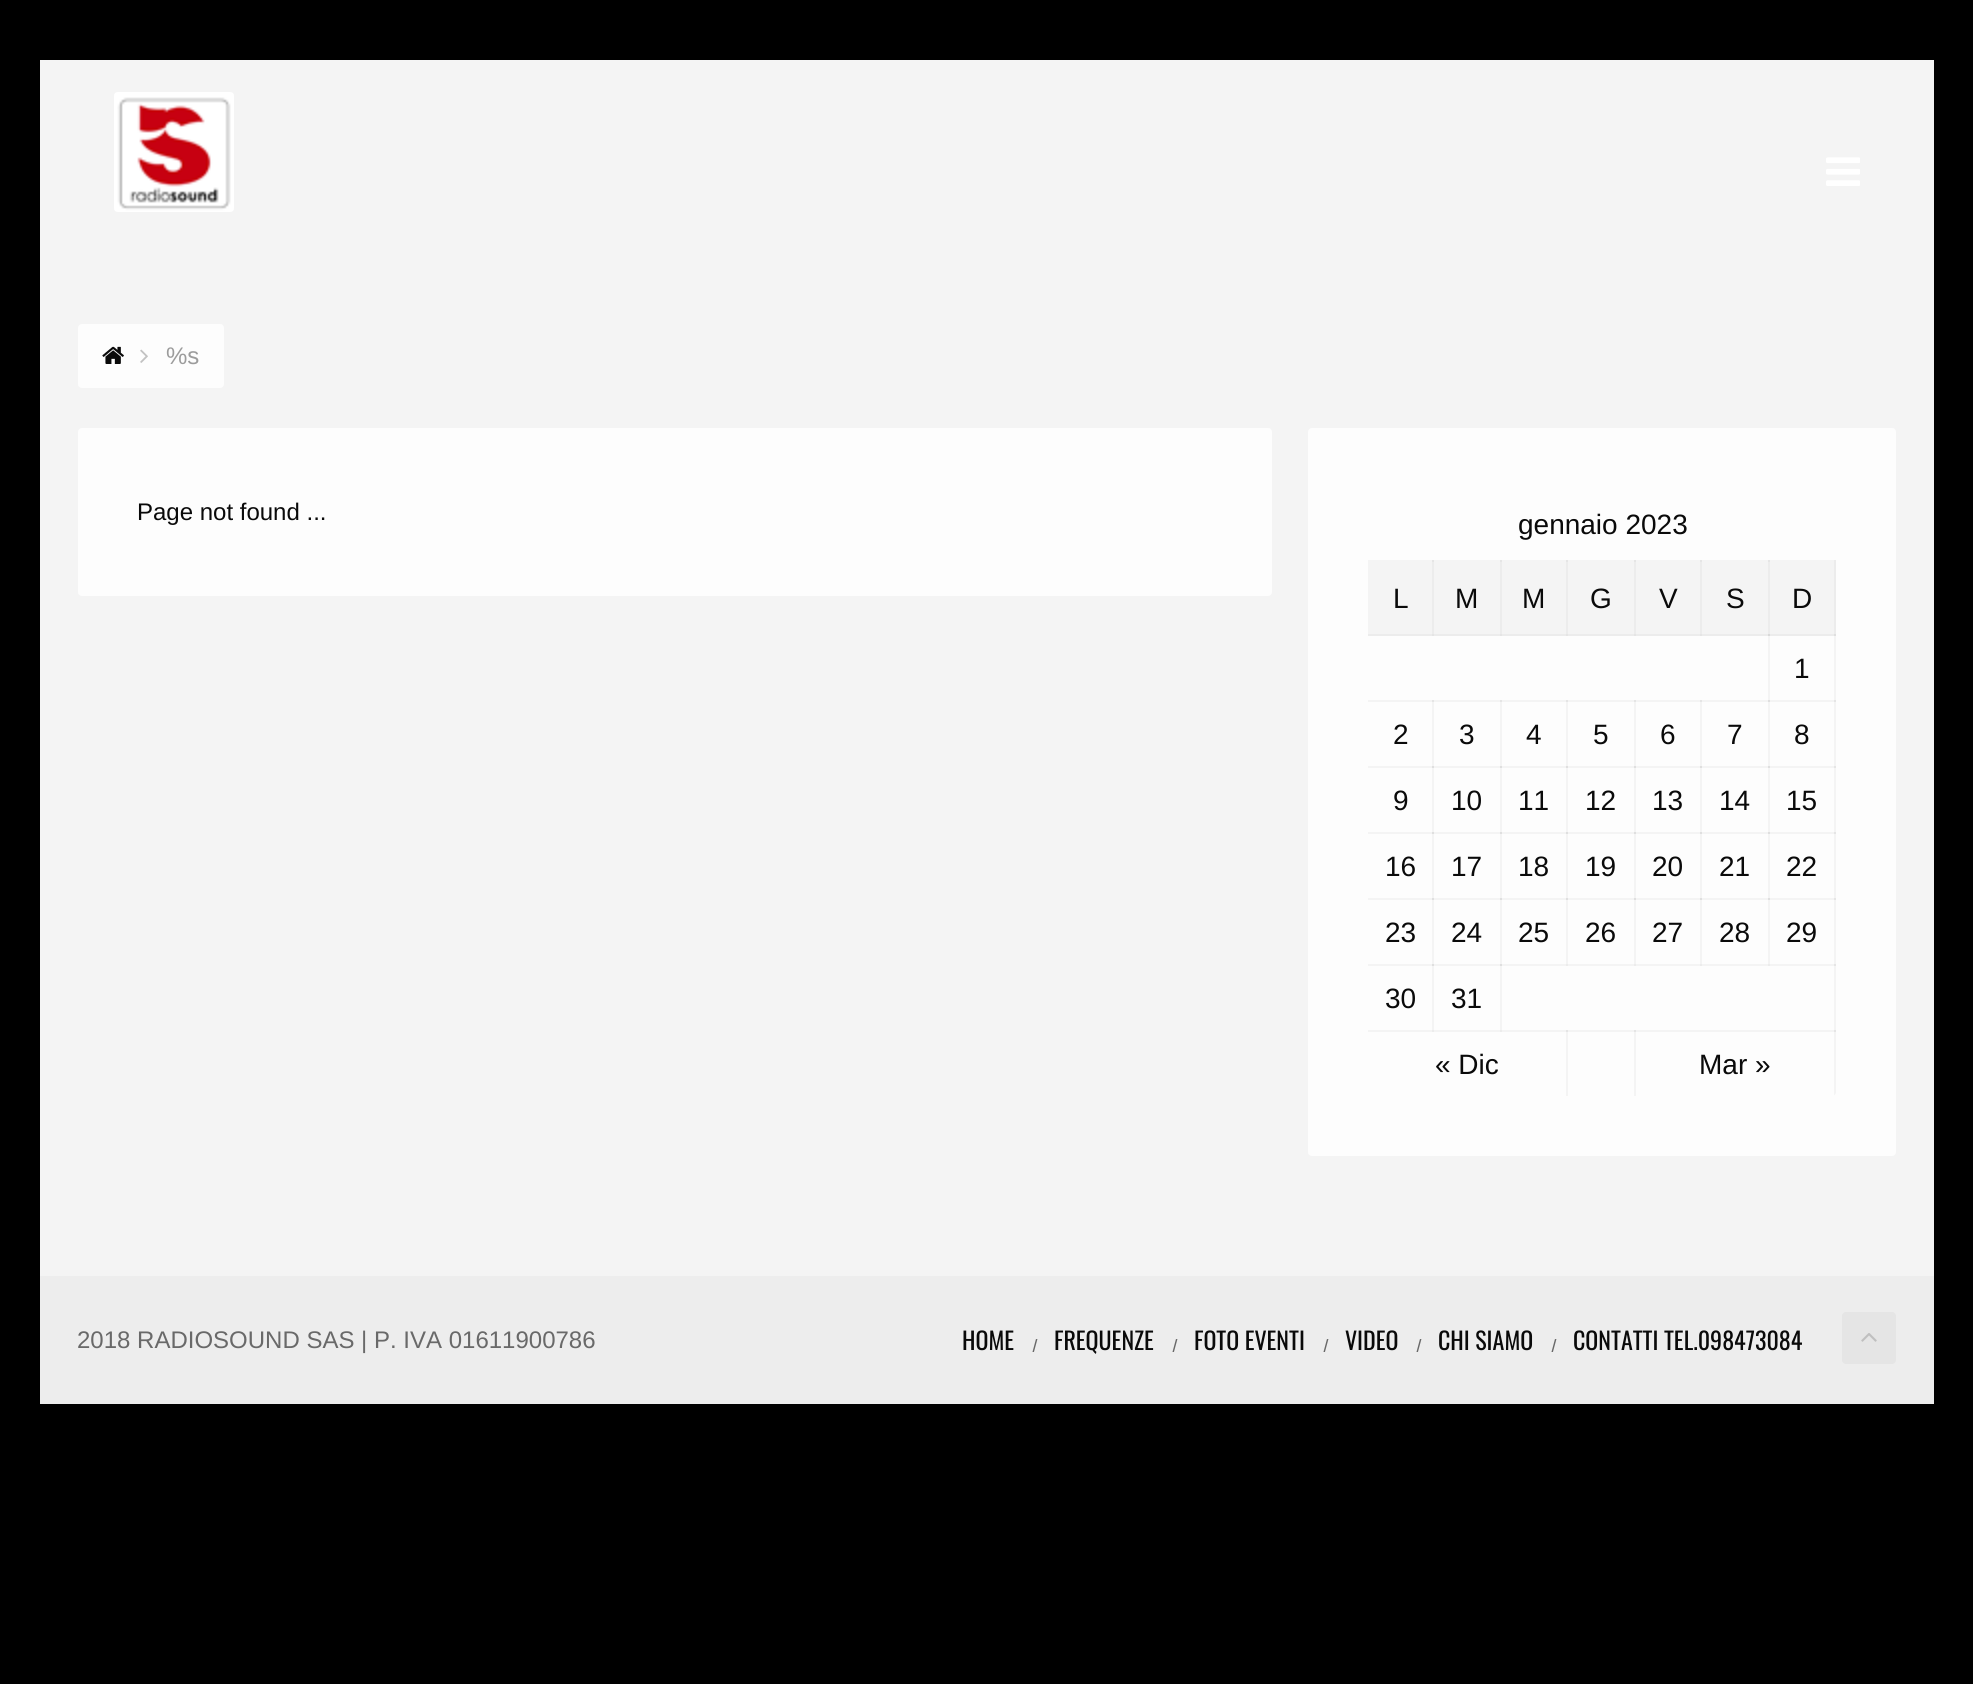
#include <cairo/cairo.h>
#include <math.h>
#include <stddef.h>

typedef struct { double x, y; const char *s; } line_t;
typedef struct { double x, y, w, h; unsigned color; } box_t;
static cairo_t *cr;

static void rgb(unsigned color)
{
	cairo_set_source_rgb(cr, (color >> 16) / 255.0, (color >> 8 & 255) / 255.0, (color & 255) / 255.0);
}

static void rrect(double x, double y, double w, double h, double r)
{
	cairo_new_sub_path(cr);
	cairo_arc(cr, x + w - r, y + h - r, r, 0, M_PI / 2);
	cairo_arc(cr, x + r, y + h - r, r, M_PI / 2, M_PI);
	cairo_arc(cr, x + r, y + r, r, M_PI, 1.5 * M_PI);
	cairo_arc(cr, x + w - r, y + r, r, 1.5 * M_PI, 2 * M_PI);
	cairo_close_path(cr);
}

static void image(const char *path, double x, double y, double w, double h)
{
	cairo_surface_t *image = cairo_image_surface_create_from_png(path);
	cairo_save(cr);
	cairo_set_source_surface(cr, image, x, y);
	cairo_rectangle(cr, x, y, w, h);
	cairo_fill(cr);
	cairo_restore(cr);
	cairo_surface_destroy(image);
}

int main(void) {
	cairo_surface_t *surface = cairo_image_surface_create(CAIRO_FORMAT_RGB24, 1973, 1684);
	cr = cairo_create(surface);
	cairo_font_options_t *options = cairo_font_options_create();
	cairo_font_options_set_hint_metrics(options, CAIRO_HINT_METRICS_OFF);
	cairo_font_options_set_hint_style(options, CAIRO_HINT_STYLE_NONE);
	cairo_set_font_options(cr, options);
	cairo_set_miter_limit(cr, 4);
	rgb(0x000000);
	cairo_paint(cr);
	rgb(0xf4f4f4);
	cairo_rectangle(cr, 40, 60, 1894, 1216);
	cairo_fill(cr);
	image("img/1.png", 114, 92, 120, 120);
	image("img/2.png", 1826, 157, 34, 29);
	rgb(0xfdfdfd);
	rrect(78, 324, 146, 64, 4);
	cairo_fill(cr);
	image("img/3.png", 102, 346, 22, 18);
	image("img/4.png", 140, 349, 8, 14);
	rrect(78, 428, 1194, 168, 4);
	cairo_fill(cr);
	rrect(1308, 428, 588, 728, 4);
	cairo_fill(cr);
	{
		static const box_t items[] = {
			{1368, 560, 468, 2, 0xf4f4f4},
			{1432, 560, 2, 2, 0xe5e5e5},
			{1500, 560, 2, 2, 0xe5e5e5},
			{1566, 560, 2, 2, 0xe5e5e5},
			{1634, 560, 2, 2, 0xe5e5e5},
			{1700, 560, 2, 2, 0xe5e5e5},
			{1566, 1030, 2, 66, 0xf4f4f4},
			{1368, 1030, 200, 2, 0xf4f4f4},
			{1634, 1030, 2, 66, 0xf4f4f4},
			{1566, 1030, 270, 2, 0xf4f4f4},
			{1566, 1030, 2, 2, 0xe5e5e5},
			{1634, 1030, 2, 2, 0xe5e5e5},
			{1768, 634, 2, 332, 0xf4f4f4},
			{1834, 634, 2, 398, 0xf4f4f4},
			{1432, 700, 2, 332, 0xf4f4f4},
			{1368, 700, 66, 2, 0xf4f4f4},
			{1500, 700, 2, 332, 0xf4f4f4},
			{1432, 700, 70, 2, 0xf4f4f4},
			{1432, 700, 2, 2, 0xe5e5e5},
			{1566, 700, 2, 266, 0xf4f4f4},
			{1500, 700, 68, 2, 0xf4f4f4},
			{1500, 700, 2, 2, 0xe5e5e5},
			{1634, 700, 2, 266, 0xf4f4f4},
			{1566, 700, 70, 2, 0xf4f4f4},
			{1566, 700, 2, 2, 0xe5e5e5},
			{1700, 700, 2, 266, 0xf4f4f4},
			{1634, 700, 202, 2, 0xf4f4f4},
			{1634, 700, 2, 2, 0xe5e5e5},
			{1700, 700, 2, 2, 0xe5e5e5},
			{1368, 766, 468, 2, 0xf4f4f4},
			{1432, 766, 2, 2, 0xdfdfdf},
			{1500, 766, 2, 2, 0xdfdfdf},
			{1566, 766, 2, 2, 0xdfdfdf},
			{1634, 766, 2, 2, 0xdfdfdf},
			{1700, 766, 2, 2, 0xdfdfdf},
			{1368, 832, 468, 2, 0xf4f4f4},
			{1432, 832, 2, 2, 0xdfdfdf},
			{1500, 832, 2, 2, 0xdfdfdf},
			{1566, 832, 2, 2, 0xdfdfdf},
			{1634, 832, 2, 2, 0xdfdfdf},
			{1700, 832, 2, 2, 0xdfdfdf},
			{1368, 898, 468, 2, 0xf4f4f4},
			{1432, 898, 2, 2, 0xdfdfdf},
			{1500, 898, 2, 2, 0xdfdfdf},
			{1566, 898, 2, 2, 0xdfdfdf},
			{1634, 898, 2, 2, 0xdfdfdf},
			{1700, 898, 2, 2, 0xdfdfdf},
			{1432, 1030, 2, 2, 0xececec},
			{1368, 964, 468, 2, 0xf4f4f4},
			{1500, 1030, 2, 2, 0xececec},
			{1432, 964, 2, 2, 0xdfdfdf},
			{1834, 1030, 2, 2, 0xececec},
			{1368, 562, 64, 72, 0xf4f4f4},
			{1432, 562, 2, 74, 0xececec},
			{1368, 634, 132, 2, 0xececec},
			{1432, 634, 2, 2, 0xe5e5e5},
			{1434, 562, 66, 72, 0xf4f4f4},
			{1502, 562, 64, 72, 0xf4f4f4},
			{1500, 562, 2, 74, 0xececec},
			{1566, 562, 2, 74, 0xececec},
			{1500, 634, 134, 2, 0xececec},
			{1500, 634, 2, 2, 0xe5e5e5},
			{1566, 634, 2, 2, 0xe5e5e5},
			{1568, 562, 66, 72, 0xf4f4f4},
			{1636, 562, 64, 72, 0xf4f4f4},
			{1634, 562, 2, 74, 0xececec},
			{1700, 562, 2, 74, 0xececec},
			{1634, 634, 134, 2, 0xececec},
			{1634, 634, 2, 2, 0xe5e5e5},
			{1700, 634, 2, 2, 0xe5e5e5},
			{1702, 562, 66, 72, 0xf4f4f4},
			{1770, 562, 64, 72, 0xf4f4f4},
			{1768, 562, 2, 74, 0xececec},
			{1834, 560, 2, 76, 0xececec},
			{1768, 560, 2, 2, 0xe5e5e5},
			{1768, 634, 68, 2, 0xececec},
			{1768, 634, 2, 2, 0xd9d9d9},
			{1834, 634, 2, 2, 0xdfdfdf},
			{1768, 700, 2, 2, 0xdfdfdf},
			{1834, 700, 2, 2, 0xe5e5e5},
			{1768, 766, 2, 2, 0xdfdfdf},
			{1834, 766, 2, 2, 0xe5e5e5},
			{1768, 832, 2, 2, 0xdfdfdf},
			{1834, 832, 2, 2, 0xe5e5e5},
			{1768, 898, 2, 2, 0xdfdfdf},
			{1834, 898, 2, 2, 0xe5e5e5},
			{1566, 964, 2, 2, 0xececec},
			{1634, 964, 2, 2, 0xececec},
			{1700, 964, 2, 2, 0xececec},
			{1768, 964, 2, 2, 0xececec},
			{1500, 964, 2, 2, 0xdfdfdf},
			{1834, 964, 2, 2, 0xe5e5e5},
		};
		for (size_t i = 0; i < sizeof items / sizeof *items; i++) {
			rgb(items[i].color);
			cairo_rectangle(cr, items[i].x, items[i].y, items[i].w, items[i].h);
			cairo_fill(cr);
		}
	}
	cairo_save(cr);
	rrect(1368, 488, 468, 608, 4);
	cairo_clip(cr);
	cairo_set_source_rgba(cr, 0.655, 0.655, 0.655, 0.1);
	cairo_rectangle(cr, 1834, 1030, 2, 66);
	cairo_fill(cr);
	cairo_restore(cr);
	rgb(0xededed);
	cairo_rectangle(cr, 40, 1276, 1894, 128);
	cairo_fill(cr);
	rgb(0xe5e5e5);
	rrect(1842, 1312, 54, 52, 4);
	cairo_fill(cr);
	image("img/5.png", 1861, 1333, 16, 9);
	cairo_select_font_face(cr, "Liberation Sans", CAIRO_FONT_SLANT_NORMAL, CAIRO_FONT_WEIGHT_NORMAL);
	cairo_set_font_size(cr, 24);
	rgb(0x9c9c9c);
	cairo_move_to(cr, 166, 364);
	cairo_show_text(cr, "%s");
	rgb(0x0a0a0a);
	cairo_move_to(cr, 137, 520);
	cairo_show_text(cr, "Page not found ...");
	cairo_set_font_size(cr, 28);
	{
		static const line_t items[] = {
			{1518, 534, "gennaio 2023"},
			{1393, 608, "L"},
			{1455, 608, "M"},
			{1522, 608, "M"},
			{1590, 608, "G"},
			{1659, 608, "V"},
			{1726, 608, "S"},
			{1792, 608, "D"},
			{1794, 678, "1"},
			{1393, 744, "2"},
			{1459, 744, "3"},
			{1526, 744, "4"},
			{1593, 744, "5"},
			{1660, 744, "6"},
			{1727, 744, "7"},
			{1794, 744, "8"},
			{1393, 810, "9"},
			{1451, 810, "10"},
			{1518, 810, "11"},
			{1585, 810, "12"},
			{1652, 810, "13"},
			{1719, 810, "14"},
			{1786, 810, "15"},
			{1385, 876, "16"},
			{1451, 876, "17"},
			{1518, 876, "18"},
			{1585, 876, "19"},
			{1652, 876, "20"},
			{1719, 876, "21"},
			{1786, 876, "22"},
			{1385, 942, "23"},
			{1451, 942, "24"},
			{1518, 942, "25"},
			{1585, 942, "26"},
			{1652, 942, "27"},
			{1719, 942, "28"},
			{1786, 942, "29"},
			{1385, 1008, "30"},
			{1451, 1008, "31"},
			{1435, 1074, "« Dic"},
			{1699, 1074, "Mar »"},
		};
		for (size_t i = 0; i < sizeof items / sizeof *items; i++) {
			cairo_move_to(cr, items[i].x, items[i].y);
			cairo_show_text(cr, items[i].s);
		}
	}
	cairo_set_font_size(cr, 24);
	rgb(0x696969);
	cairo_move_to(cr, 77, 1348);
	cairo_show_text(cr, "2018 RADIOSOUND SAS | P. IVA 01611900786");
	cairo_select_font_face(cr, "Oswald", CAIRO_FONT_SLANT_NORMAL, CAIRO_FONT_WEIGHT_NORMAL);
	rgb(0x0a0a0a);
	cairo_move_to(cr, 962, 1350);
	cairo_show_text(cr, "HOME");
	cairo_set_font_size(cr, 16);
	rgb(0x696969);
	cairo_move_to(cr, 1032, 1352);
	cairo_show_text(cr, "/");
	cairo_set_font_size(cr, 24);
	rgb(0x0a0a0a);
	cairo_move_to(cr, 1054, 1350);
	cairo_show_text(cr, "FREQUENZE");
	cairo_set_font_size(cr, 16);
	rgb(0x696969);
	cairo_move_to(cr, 1172, 1352);
	cairo_show_text(cr, "/");
	cairo_set_font_size(cr, 24);
	rgb(0x0a0a0a);
	cairo_move_to(cr, 1194, 1350);
	cairo_show_text(cr, "FOTO EVENTI");
	cairo_set_font_size(cr, 16);
	rgb(0x696969);
	cairo_move_to(cr, 1323, 1352);
	cairo_show_text(cr, "/");
	cairo_set_font_size(cr, 24);
	rgb(0x0a0a0a);
	cairo_move_to(cr, 1345, 1350);
	cairo_show_text(cr, "VIDEO");
	cairo_set_font_size(cr, 16);
	rgb(0x696969);
	cairo_move_to(cr, 1416, 1352);
	cairo_show_text(cr, "/");
	cairo_set_font_size(cr, 24);
	rgb(0x0a0a0a);
	cairo_move_to(cr, 1438, 1350);
	cairo_show_text(cr, "CHI SIAMO");
	cairo_set_font_size(cr, 16);
	rgb(0x696969);
	cairo_move_to(cr, 1551, 1352);
	cairo_show_text(cr, "/");
	cairo_set_font_size(cr, 24);
	rgb(0x0a0a0a);
	cairo_move_to(cr, 1573, 1350);
	cairo_show_text(cr, "CONTATTI TEL.098473084");
	cairo_surface_write_to_png(surface, "page.png");
	cairo_font_options_destroy(options);
	cairo_destroy(cr);
	cairo_surface_destroy(surface);
	return 0;
}
